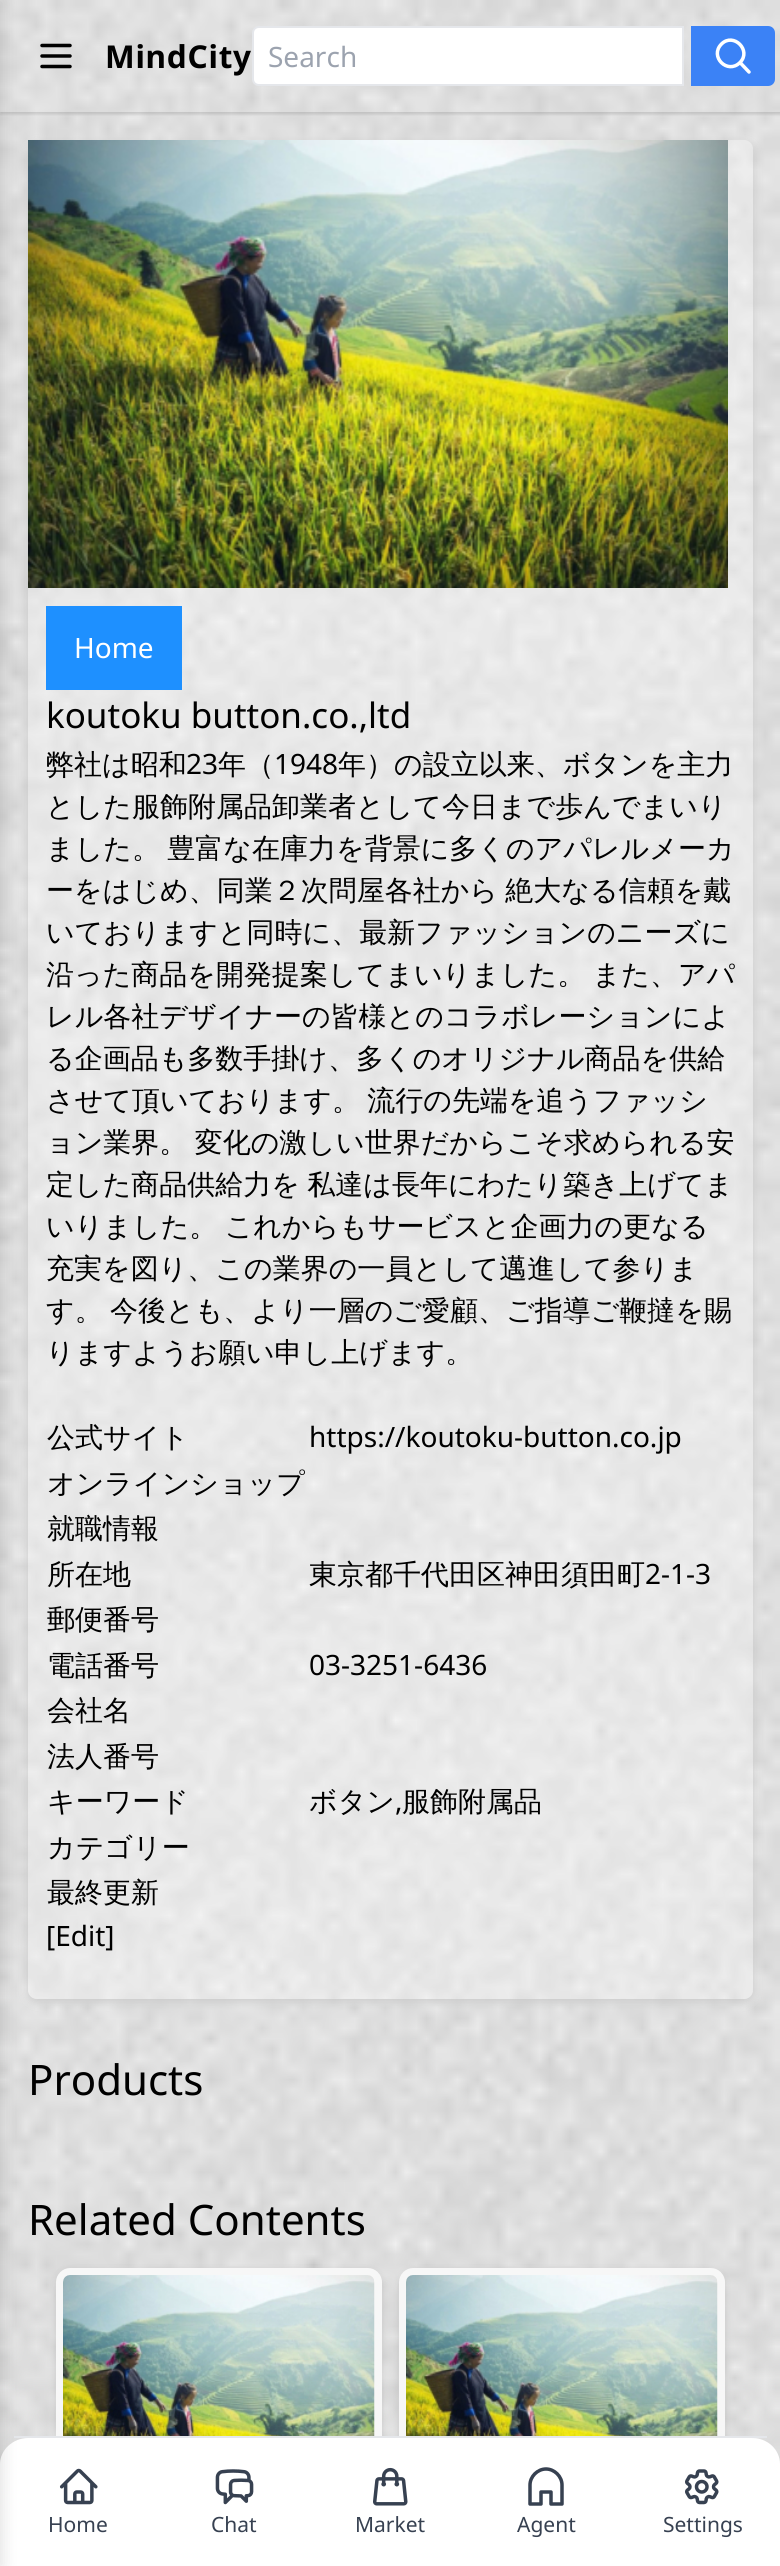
#include <cairo/cairo.h>
#include <math.h>
#include <stddef.h>

typedef struct { double x, y; const char *s; } line_t;
static cairo_t *cr;

static void rgb(unsigned color)
{
	cairo_set_source_rgb(cr, (color >> 16) / 255.0, (color >> 8 & 255) / 255.0, (color & 255) / 255.0);
}

static void tracked(double x, double y, const char *s, double letter, double word)
{
	cairo_move_to(cr, x, y);
	while (*s) {
		char ch[5] = {0};
		int n = 0;
		do ch[n++] = *s++; while ((*s & 0xC0) == 0x80);
		cairo_show_text(cr, ch);
		cairo_rel_move_to(cr, letter + word * (*ch == ' '), 0);
	}
}

static void rrect(double x, double y, double w, double h, double r)
{
	cairo_new_sub_path(cr);
	cairo_arc(cr, x + w - r, y + h - r, r, 0, M_PI / 2);
	cairo_arc(cr, x + r, y + h - r, r, M_PI / 2, M_PI);
	cairo_arc(cr, x + r, y + r, r, M_PI, 1.5 * M_PI);
	cairo_arc(cr, x + w - r, y + r, r, 1.5 * M_PI, 2 * M_PI);
	cairo_close_path(cr);
}

static void soft_shadow(double x, double y, double w, double h, double r, double blur, double alpha)
{
	cairo_push_group_with_content(cr, CAIRO_CONTENT_ALPHA);
	cairo_set_operator(cr, CAIRO_OPERATOR_SOURCE);
	for (int i = 15; i >= -15 && fmin(w, h) + blur * i / 3 > 0; i -= 2) {
		double e = blur * i / 6;
		cairo_set_source_rgba(cr, 0, 0, 0, alpha * erfc((i - 1) / 8.5) / 2);
		rrect(x - e, y - e, w + 2 * e, h + 2 * e, fmax(0, fmin(r + e + blur * .6, fmin(w, h) / 2 + e)));
		cairo_fill(cr);
	}
	cairo_pattern_t *soft = cairo_pop_group(cr);
	cairo_mask(cr, soft);
	cairo_pattern_destroy(soft);
}

static void image(const char *path, double x, double y, double w, double h)
{
	cairo_surface_t *image = cairo_image_surface_create_from_png(path);
	cairo_save(cr);
	cairo_set_source_surface(cr, image, x, y);
	cairo_rectangle(cr, x, y, w, h);
	cairo_fill(cr);
	cairo_restore(cr);
	cairo_surface_destroy(image);
}

int main(void) {
	cairo_surface_t *surface = cairo_image_surface_create(CAIRO_FORMAT_RGB24, 780, 2566);
	cr = cairo_create(surface);
	cairo_font_options_t *options = cairo_font_options_create();
	cairo_font_options_set_hint_metrics(options, CAIRO_HINT_METRICS_OFF);
	cairo_font_options_set_hint_style(options, CAIRO_HINT_STYLE_NONE);
	cairo_set_font_options(cr, options);
	cairo_set_miter_limit(cr, 4);
	rgb(0xffffff);
	cairo_paint(cr);
	image("img/1.png", 0, 0, 780, 2464);
	rgb(0xffffff);
	cairo_new_path(cr);
	cairo_move_to(cr, 28, 2438);
	cairo_line_to(cr, 752, 2438);
	cairo_curve_to(cr, 768, 2438, 780, 2450, 780, 2464);
	cairo_line_to(cr, 780, 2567);
	cairo_line_to(cr, 0, 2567);
	cairo_line_to(cr, 0, 2464);
	cairo_curve_to(cr, 0, 2450, 13, 2438, 28, 2438);
	cairo_close_path(cr);
	cairo_fill(cr);
	rgb(0xe5e7eb);
	cairo_rectangle(cr, 14, 2436, 753, 2);
	cairo_fill(cr);
	rgb(0x000000);
	soft_shadow(-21, 0, 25, 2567, 0, 7, 0.1);
	cairo_save(cr);
	cairo_rectangle(cr, 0, 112, 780, 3);
	cairo_clip(cr);
	soft_shadow(0, 2, 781, 112, 0, 2, 0.06);
	cairo_restore(cr);
	cairo_save(cr);
	cairo_rectangle(cr, 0, 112, 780, 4);
	cairo_clip(cr);
	soft_shadow(0, 2, 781, 112, 0, 2.5, 0.1);
	cairo_restore(cr);
	cairo_new_path(cr);
	cairo_move_to(cr, 42, 45.5);
	cairo_line_to(cr, 70, 45.5);
	cairo_move_to(cr, 42, 56);
	cairo_line_to(cr, 70, 56);
	cairo_move_to(cr, 42, 66.5);
	cairo_line_to(cr, 70, 66.5);
	rgb(0x000000);
	cairo_set_line_width(cr, 3.5);
	cairo_set_line_cap(cr, CAIRO_LINE_CAP_ROUND);
	cairo_set_line_join(cr, CAIRO_LINE_JOIN_ROUND);
	cairo_stroke(cr);
	rgb(0xffffff);
	cairo_new_path(cr);
	cairo_move_to(cr, 259, 27);
	cairo_line_to(cr, 683, 27);
	cairo_line_to(cr, 683, 85);
	cairo_line_to(cr, 259, 85);
	cairo_curve_to(cr, 255.5, 85, 253, 82.5, 253, 79);
	cairo_line_to(cr, 253, 33);
	cairo_curve_to(cr, 253, 29.5, 255.5, 27, 259, 27);
	cairo_close_path(cr);
	cairo_fill_preserve(cr);
	rgb(0xe5e7eb);
	cairo_set_line_width(cr, 2);
	cairo_set_line_cap(cr, CAIRO_LINE_CAP_BUTT);
	cairo_set_line_join(cr, CAIRO_LINE_JOIN_MITER);
	cairo_stroke(cr);
	rgb(0x3b82f6);
	cairo_new_path(cr);
	cairo_move_to(cr, 691, 26);
	cairo_line_to(cr, 768, 26);
	cairo_curve_to(cr, 772, 26, 775, 29, 775, 33);
	cairo_line_to(cr, 775, 79);
	cairo_curve_to(cr, 775, 83, 772, 86, 768, 86);
	cairo_line_to(cr, 691, 86);
	cairo_close_path(cr);
	cairo_fill(cr);
	cairo_new_path(cr);
	cairo_move_to(cr, 749, 72);
	cairo_line_to(cr, 740, 62.5);
	cairo_move_to(cr, 740, 62.5);
	cairo_curve_to(cr, 752, 50.5, 733.5, 32, 721.5, 44);
	cairo_curve_to(cr, 709, 56.5, 727.5, 75, 740, 62.5);
	cairo_close_path(cr);
	rgb(0xffffff);
	cairo_set_line_width(cr, 3.5);
	cairo_set_line_cap(cr, CAIRO_LINE_CAP_ROUND);
	cairo_set_line_join(cr, CAIRO_LINE_JOIN_ROUND);
	cairo_stroke(cr);
	cairo_save(cr);
	cairo_set_fill_rule(cr, CAIRO_FILL_RULE_EVEN_ODD);
	cairo_new_path(cr);
	cairo_move_to(cr, 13, 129);
	cairo_line_to(cr, 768, 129);
	cairo_line_to(cr, 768, 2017);
	cairo_line_to(cr, 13, 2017);
	cairo_close_path(cr);
	cairo_move_to(cr, 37, 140);
	cairo_line_to(cr, 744, 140);
	cairo_curve_to(cr, 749, 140, 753, 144, 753, 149);
	cairo_line_to(cr, 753, 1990);
	cairo_curve_to(cr, 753, 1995, 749, 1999, 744, 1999);
	cairo_line_to(cr, 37, 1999);
	cairo_curve_to(cr, 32, 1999, 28, 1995, 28, 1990);
	cairo_line_to(cr, 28, 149);
	cairo_curve_to(cr, 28, 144, 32, 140, 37, 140);
	cairo_close_path(cr);
	cairo_clip(cr);
	rgb(0xcccccc);
	soft_shadow(28, 144, 725, 1858, 9, 4.5, 1);
	cairo_restore(cr);
	cairo_set_source_rgba(cr, 1, 1, 1, 0.3);
	rrect(28, 140, 725, 1859, 9);
	cairo_fill(cr);
	image("img/2.png", 28, 140, 700, 448);
	rgb(0x1e90ff);
	cairo_rectangle(cr, 46, 606, 136, 84);
	cairo_fill(cr);
	image("img/4.png", 59, 2468, 39, 37);
	image("img/5.png", 215, 2469, 39, 36);
	image("img/6.png", 373, 2467, 35, 39);
	cairo_save(cr);
	cairo_rectangle(cr, 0, 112, 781, 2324);
	cairo_clip(cr);
	rgb(0x000000);
	soft_shadow(56, 2270, 326, 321, 14, 3.5, 0.1);
	cairo_restore(cr);
	rgb(0xf7f7f7);
	cairo_new_path(cr);
	cairo_move_to(cr, 70, 2268);
	cairo_line_to(cr, 368, 2268);
	cairo_curve_to(cr, 375.5, 2268, 382, 2274.5, 382, 2282);
	cairo_line_to(cr, 382, 2436);
	cairo_line_to(cr, 56, 2436);
	cairo_line_to(cr, 56, 2282);
	cairo_curve_to(cr, 56, 2274.5, 62.5, 2268, 70, 2268);
	cairo_close_path(cr);
	cairo_fill(cr);
	image("img/3.png", 63, 2275, 312, 161);
	cairo_new_path(cr);
	cairo_move_to(cr, 546, 2469);
	cairo_curve_to(cr, 537.5, 2469, 530, 2476.5, 530, 2485);
	cairo_line_to(cr, 530, 2504);
	cairo_line_to(cr, 541, 2504);
	cairo_line_to(cr, 541, 2492);
	cairo_line_to(cr, 551, 2492);
	cairo_line_to(cr, 551, 2504);
	cairo_line_to(cr, 562, 2504);
	cairo_line_to(cr, 562, 2485);
	cairo_curve_to(cr, 562, 2476.5, 554.5, 2469, 546, 2469);
	cairo_close_path(cr);
	rgb(0x374151);
	cairo_stroke(cr);
	image("img/7.png", 685, 2469, 34, 36);
	cairo_save(cr);
	cairo_rectangle(cr, 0, 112, 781, 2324);
	cairo_clip(cr);
	rgb(0x000000);
	soft_shadow(399, 2270, 326, 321, 14, 3.5, 0.1);
	cairo_restore(cr);
	rgb(0xf7f7f7);
	cairo_new_path(cr);
	cairo_move_to(cr, 413, 2268);
	cairo_line_to(cr, 711, 2268);
	cairo_curve_to(cr, 718.5, 2268, 725, 2274.5, 725, 2282);
	cairo_line_to(cr, 725, 2436);
	cairo_line_to(cr, 399, 2436);
	cairo_line_to(cr, 399, 2282);
	cairo_curve_to(cr, 399, 2274.5, 405.5, 2268, 413, 2268);
	cairo_close_path(cr);
	cairo_fill(cr);
	image("img/3.png", 406, 2275, 312, 161);
	cairo_select_font_face(cr, "Noto Sans", CAIRO_FONT_SLANT_NORMAL, CAIRO_FONT_WEIGHT_BOLD);
	cairo_set_font_size(cr, 31.5);
	rgb(0x000000);
	tracked(105, 68, "MindCity", 0.75, 0);
	cairo_select_font_face(cr, "Noto Sans", CAIRO_FONT_SLANT_NORMAL, CAIRO_FONT_WEIGHT_NORMAL);
	cairo_set_font_size(cr, 28);
	rgb(0x9ca3af);
	cairo_move_to(cr, 268, 67);
	cairo_show_text(cr, "Search");
	rgb(0xffffff);
	cairo_move_to(cr, 74, 658);
	cairo_show_text(cr, "Home");
	cairo_set_font_size(cr, 35);
	rgb(0x000000);
	cairo_move_to(cr, 46, 728);
	cairo_show_text(cr, "koutoku button.co.,ltd");
	cairo_select_font_face(cr, "WenQuanYi Zen Hei Medium", CAIRO_FONT_SLANT_NORMAL, CAIRO_FONT_WEIGHT_NORMAL);
	cairo_set_font_size(cr, 28);
	cairo_move_to(cr, 46, 774);
	cairo_show_text(cr, "弊社は昭和");
	cairo_select_font_face(cr, "Noto Sans", CAIRO_FONT_SLANT_NORMAL, CAIRO_FONT_WEIGHT_NORMAL);
	cairo_move_to(cr, 186, 774);
	cairo_show_text(cr, "23");
	cairo_select_font_face(cr, "WenQuanYi Zen Hei Medium", CAIRO_FONT_SLANT_NORMAL, CAIRO_FONT_WEIGHT_NORMAL);
	cairo_move_to(cr, 218, 774);
	cairo_show_text(cr, "年（");
	cairo_select_font_face(cr, "Noto Sans", CAIRO_FONT_SLANT_NORMAL, CAIRO_FONT_WEIGHT_NORMAL);
	cairo_move_to(cr, 274, 774);
	cairo_show_text(cr, "1948");
	cairo_select_font_face(cr, "WenQuanYi Zen Hei Medium", CAIRO_FONT_SLANT_NORMAL, CAIRO_FONT_WEIGHT_NORMAL);
	cairo_move_to(cr, 338, 774);
	cairo_show_text(cr, "年）の設立以来、ボタンを主力");
	cairo_move_to(cr, 46, 816);
	cairo_show_text(cr, "とした服飾附属品卸業者として今日まで歩んでまいり");
	tracked(46, 858, "ました。 豊富な在庫力を背景に多くのアパレルメーカ", 0, -1);
	tracked(46, 900, "ーをはじめ、同業２次問屋各社から 絶大なる信頼を戴", 0, -1);
	cairo_move_to(cr, 46, 942);
	cairo_show_text(cr, "いておりますと同時に、最新ファッションのニーズに");
	tracked(46, 984, "沿った商品を開発提案してまいりました。 また、アパ", 0, -1);
	cairo_move_to(cr, 46, 1026);
	cairo_show_text(cr, "レル各社デザイナーの皆様とのコラボレーションによ");
	cairo_move_to(cr, 46, 1068);
	cairo_show_text(cr, "る企画品も多数手掛け、多くのオリジナル商品を供給");
	{
		static const line_t items[] = {
			{46, 1110, "させて頂いております。 流行の先端を追うファッシ"},
			{46, 1152, "ョン業界。 変化の激しい世界だからこそ求められる安"},
			{46, 1194, "定した商品供給力を 私達は長年にわたり築き上げてま"},
			{46, 1236, "いりました。 これからもサービスと企画力の更なる"},
		};
		for (size_t i = 0; i < sizeof items / sizeof *items; i++) {
			tracked(items[i].x, items[i].y, items[i].s, 0, -1);
		}
	}
	cairo_move_to(cr, 46, 1278);
	cairo_show_text(cr, "充実を図り、この業界の一員として邁進して参りま");
	tracked(46, 1320, "す。 今後とも、より一層のご愛顧、ご指導ご鞭撻を賜", 0, -1);
	cairo_move_to(cr, 46, 1362);
	cairo_show_text(cr, "りますようお願い申し上げます。");
	cairo_move_to(cr, 47, 1447);
	cairo_show_text(cr, "公式サイト");
	cairo_select_font_face(cr, "Noto Sans", CAIRO_FONT_SLANT_NORMAL, CAIRO_FONT_WEIGHT_NORMAL);
	cairo_move_to(cr, 309, 1447);
	cairo_show_text(cr, "https://koutoku-button.co.jp");
	cairo_select_font_face(cr, "WenQuanYi Zen Hei Medium", CAIRO_FONT_SLANT_NORMAL, CAIRO_FONT_WEIGHT_NORMAL);
	{
		static const line_t items[] = {
			{47, 1493, "オンラインショップ"},
			{47, 1538, "就職情報"},
			{47, 1584, "所在地"},
			{309, 1584, "東京都千代田区神田須田町"},
		};
		for (size_t i = 0; i < sizeof items / sizeof *items; i++) {
			cairo_move_to(cr, items[i].x, items[i].y);
			cairo_show_text(cr, items[i].s);
		}
	}
	cairo_select_font_face(cr, "Noto Sans", CAIRO_FONT_SLANT_NORMAL, CAIRO_FONT_WEIGHT_NORMAL);
	cairo_move_to(cr, 645, 1584);
	cairo_show_text(cr, "2-1-3");
	cairo_select_font_face(cr, "WenQuanYi Zen Hei Medium", CAIRO_FONT_SLANT_NORMAL, CAIRO_FONT_WEIGHT_NORMAL);
	cairo_move_to(cr, 47, 1629);
	cairo_show_text(cr, "郵便番号");
	cairo_move_to(cr, 47, 1675);
	cairo_show_text(cr, "電話番号");
	cairo_select_font_face(cr, "Noto Sans", CAIRO_FONT_SLANT_NORMAL, CAIRO_FONT_WEIGHT_NORMAL);
	cairo_move_to(cr, 309, 1675);
	cairo_show_text(cr, "03-3251-6436");
	cairo_select_font_face(cr, "WenQuanYi Zen Hei Medium", CAIRO_FONT_SLANT_NORMAL, CAIRO_FONT_WEIGHT_NORMAL);
	{
		static const line_t items[] = {
			{47, 1720, "会社名"},
			{47, 1766, "法人番号"},
			{47, 1811, "キーワード"},
			{309, 1811, "ボタン"},
		};
		for (size_t i = 0; i < sizeof items / sizeof *items; i++) {
			cairo_move_to(cr, items[i].x, items[i].y);
			cairo_show_text(cr, items[i].s);
		}
	}
	cairo_select_font_face(cr, "Noto Sans", CAIRO_FONT_SLANT_NORMAL, CAIRO_FONT_WEIGHT_NORMAL);
	cairo_move_to(cr, 395, 1811);
	cairo_show_text(cr, ",");
	cairo_select_font_face(cr, "WenQuanYi Zen Hei Medium", CAIRO_FONT_SLANT_NORMAL, CAIRO_FONT_WEIGHT_NORMAL);
	{
		static const line_t items[] = {
			{402, 1811, "服飾附属品"},
			{47, 1857, "カテゴリー"},
			{47, 1902, "最終更新"},
		};
		for (size_t i = 0; i < sizeof items / sizeof *items; i++) {
			cairo_move_to(cr, items[i].x, items[i].y);
			cairo_show_text(cr, items[i].s);
		}
	}
	cairo_select_font_face(cr, "Noto Sans", CAIRO_FONT_SLANT_NORMAL, CAIRO_FONT_WEIGHT_NORMAL);
	cairo_move_to(cr, 46, 1946);
	cairo_show_text(cr, "[Edit]");
	cairo_set_font_size(cr, 42);
	cairo_move_to(cr, 28, 2095);
	cairo_show_text(cr, "Products");
	cairo_move_to(cr, 28, 2235);
	cairo_show_text(cr, "Related Contents");
	cairo_set_font_size(cr, 21);
	rgb(0x374151);
	{
		static const line_t items[] = {
			{48, 2532, "Home"},
			{211, 2532, "Chat"},
			{355, 2532, "Market"},
			{517, 2532, "Agent"},
			{663, 2532, "Settings"},
		};
		for (size_t i = 0; i < sizeof items / sizeof *items; i++) {
			cairo_move_to(cr, items[i].x, items[i].y);
			cairo_show_text(cr, items[i].s);
		}
	}
	cairo_surface_write_to_png(surface, "page.png");
	cairo_font_options_destroy(options);
	cairo_destroy(cr);
	cairo_surface_destroy(surface);
	return 0;
}
